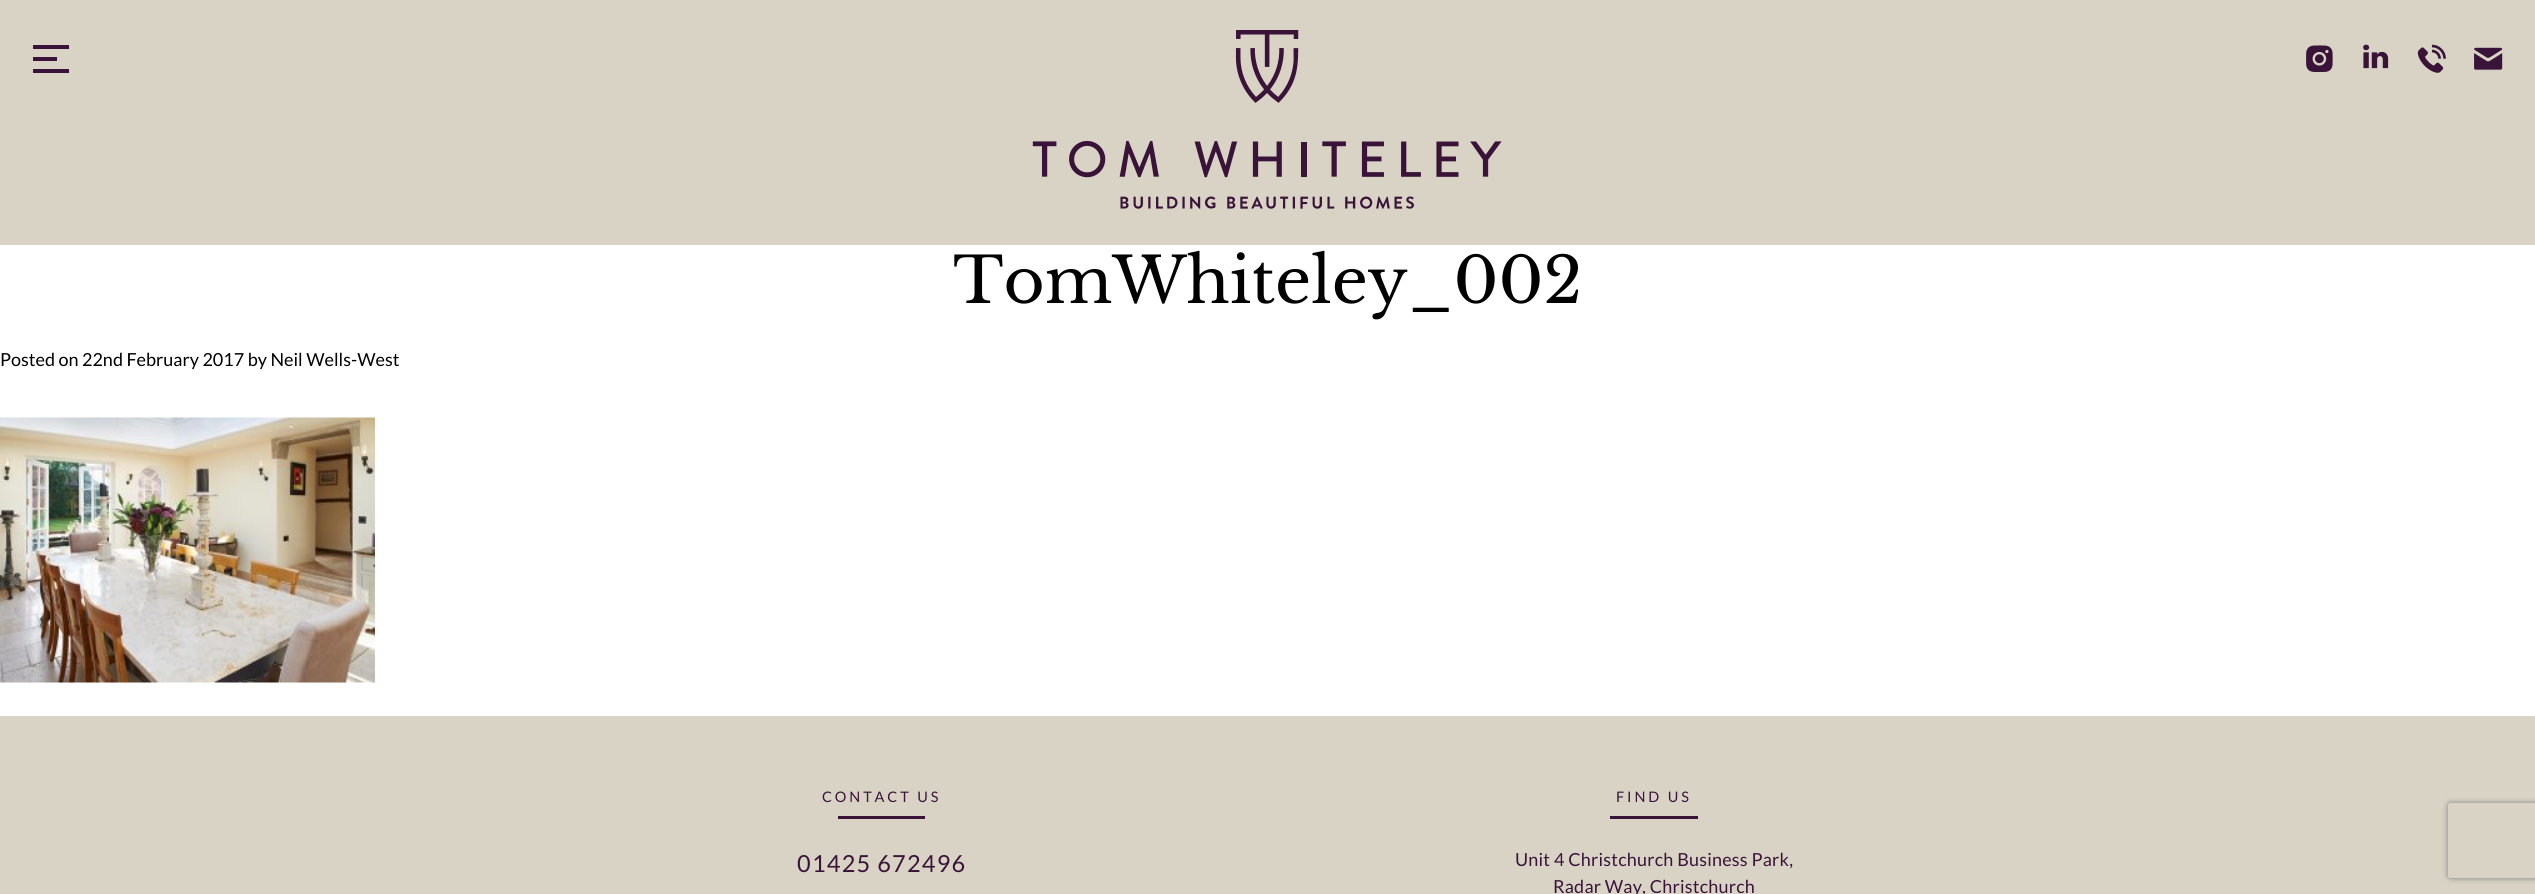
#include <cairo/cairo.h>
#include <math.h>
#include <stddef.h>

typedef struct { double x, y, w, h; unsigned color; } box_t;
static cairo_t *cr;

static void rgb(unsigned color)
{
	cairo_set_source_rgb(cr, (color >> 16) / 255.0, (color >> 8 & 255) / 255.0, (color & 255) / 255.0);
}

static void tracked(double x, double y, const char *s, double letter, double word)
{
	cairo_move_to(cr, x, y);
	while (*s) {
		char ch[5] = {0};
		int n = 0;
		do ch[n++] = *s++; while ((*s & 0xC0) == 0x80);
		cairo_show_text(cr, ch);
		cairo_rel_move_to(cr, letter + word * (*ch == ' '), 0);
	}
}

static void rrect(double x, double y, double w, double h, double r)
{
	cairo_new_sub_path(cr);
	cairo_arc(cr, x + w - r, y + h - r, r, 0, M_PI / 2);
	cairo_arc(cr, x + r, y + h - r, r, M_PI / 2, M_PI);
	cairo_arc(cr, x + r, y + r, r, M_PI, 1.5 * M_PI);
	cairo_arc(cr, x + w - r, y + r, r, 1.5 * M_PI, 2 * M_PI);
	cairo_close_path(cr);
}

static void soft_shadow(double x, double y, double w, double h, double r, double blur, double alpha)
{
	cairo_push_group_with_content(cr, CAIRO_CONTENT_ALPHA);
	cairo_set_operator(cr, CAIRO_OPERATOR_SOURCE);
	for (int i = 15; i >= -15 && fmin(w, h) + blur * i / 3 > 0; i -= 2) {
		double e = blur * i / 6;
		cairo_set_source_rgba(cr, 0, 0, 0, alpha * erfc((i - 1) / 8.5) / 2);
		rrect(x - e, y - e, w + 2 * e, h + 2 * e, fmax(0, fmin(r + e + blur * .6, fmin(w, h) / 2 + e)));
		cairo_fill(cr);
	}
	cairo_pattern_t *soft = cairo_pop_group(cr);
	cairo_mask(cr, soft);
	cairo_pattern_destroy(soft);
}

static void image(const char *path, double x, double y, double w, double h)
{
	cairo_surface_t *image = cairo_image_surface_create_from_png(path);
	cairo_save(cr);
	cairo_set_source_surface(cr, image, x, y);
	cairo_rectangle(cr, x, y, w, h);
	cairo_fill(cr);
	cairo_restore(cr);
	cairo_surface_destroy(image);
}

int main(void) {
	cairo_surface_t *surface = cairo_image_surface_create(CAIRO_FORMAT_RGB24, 2535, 894);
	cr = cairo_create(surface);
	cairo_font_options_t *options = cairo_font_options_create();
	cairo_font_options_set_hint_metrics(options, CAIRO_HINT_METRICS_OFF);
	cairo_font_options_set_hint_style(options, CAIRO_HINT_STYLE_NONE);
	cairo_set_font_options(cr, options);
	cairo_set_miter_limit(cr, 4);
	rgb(0xffffff);
	cairo_paint(cr);
	rgb(0xd9d3c6);
	cairo_rectangle(cr, 0, 0, 2535, 245);
	cairo_fill(cr);
	rgb(0x391438);
	cairo_new_path(cr);
	cairo_move_to(cr, 69, 73);
	cairo_line_to(cr, 33, 73);
	cairo_line_to(cr, 33, 69);
	cairo_line_to(cr, 69, 69);
	cairo_close_path(cr);
	cairo_move_to(cr, 57, 61);
	cairo_line_to(cr, 33, 61);
	cairo_line_to(cr, 33, 57);
	cairo_line_to(cr, 57, 57);
	cairo_close_path(cr);
	cairo_move_to(cr, 69, 49);
	cairo_line_to(cr, 33, 49);
	cairo_line_to(cr, 33, 45);
	cairo_line_to(cr, 69, 45);
	cairo_close_path(cr);
	cairo_fill(cr);
	image("img/1.png", 1032, 30, 470, 179);
	image("img/2.png", 2306, 45, 27, 27);
	image("img/3.png", 2363, 44, 26, 25);
	image("img/4.png", 2417, 44, 29, 29);
	image("img/5.png", 2474, 47, 29, 23);
	image("img/6.png", 0, 417, 375, 266);
	{
		static const box_t items[] = {
			{0, 716, 2535, 178, 0xd9d3c6},
			{838, 816, 87, 3, 0x391438},
			{1610, 816, 88, 3, 0x391438},
		};
		for (size_t i = 0; i < sizeof items / sizeof *items; i++) {
			rgb(items[i].color);
			cairo_rectangle(cr, items[i].x, items[i].y, items[i].w, items[i].h);
			cairo_fill(cr);
		}
	}
	cairo_save(cr);
	cairo_set_fill_rule(cr, CAIRO_FILL_RULE_EVEN_ODD);
	cairo_new_path(cr);
	cairo_move_to(cr, 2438, 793);
	cairo_line_to(cr, 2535, 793);
	cairo_line_to(cr, 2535, 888);
	cairo_line_to(cr, 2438, 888);
	cairo_close_path(cr);
	cairo_move_to(cr, 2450.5, 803);
	cairo_line_to(cr, 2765.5, 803);
	cairo_curve_to(cr, 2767, 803, 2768, 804, 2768, 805.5);
	cairo_line_to(cr, 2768, 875.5);
	cairo_curve_to(cr, 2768, 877, 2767, 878, 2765.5, 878);
	cairo_line_to(cr, 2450.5, 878);
	cairo_curve_to(cr, 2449, 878, 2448, 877, 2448, 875.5);
	cairo_line_to(cr, 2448, 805.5);
	cairo_curve_to(cr, 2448, 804, 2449, 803, 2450.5, 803);
	cairo_close_path(cr);
	cairo_clip(cr);
	rgb(0x808080);
	soft_shadow(2448, 803, 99, 75, 2.5, 3, 1);
	cairo_restore(cr);
	cairo_select_font_face(cr, "Libre Baskerville", CAIRO_FONT_SLANT_NORMAL, CAIRO_FONT_WEIGHT_NORMAL);
	cairo_set_font_size(cr, 63);
	rgb(0x000000);
	cairo_move_to(cr, 953, 303);
	cairo_show_text(cr, "TomWhiteley_002");
	cairo_select_font_face(cr, "Lato", CAIRO_FONT_SLANT_NORMAL, CAIRO_FONT_WEIGHT_NORMAL);
	cairo_set_font_size(cr, 18);
	cairo_move_to(cr, 0, 366);
	cairo_show_text(cr, "Posted on 22nd February 2017 by Neil Wells-West");
	cairo_set_font_size(cr, 14.5);
	rgb(0x391438);
	tracked(822, 802, "CONTACT US", 2.9, 0);
	cairo_set_font_size(cr, 23.5);
	tracked(797, 872, "01425 672496", 1.25, 0);
	cairo_set_font_size(cr, 14.5);
	tracked(1616, 802, "FIND US", 2.9, 0);
	cairo_set_font_size(cr, 18);
	tracked(1515, 866, "Unit 4 Christchurch Business Park,", 0.2, 0);
	tracked(1553, 893, "Radar Way, Christchurch", 0.2, 0);
	cairo_surface_write_to_png(surface, "page.png");
	cairo_font_options_destroy(options);
	cairo_destroy(cr);
	cairo_surface_destroy(surface);
	return 0;
}
